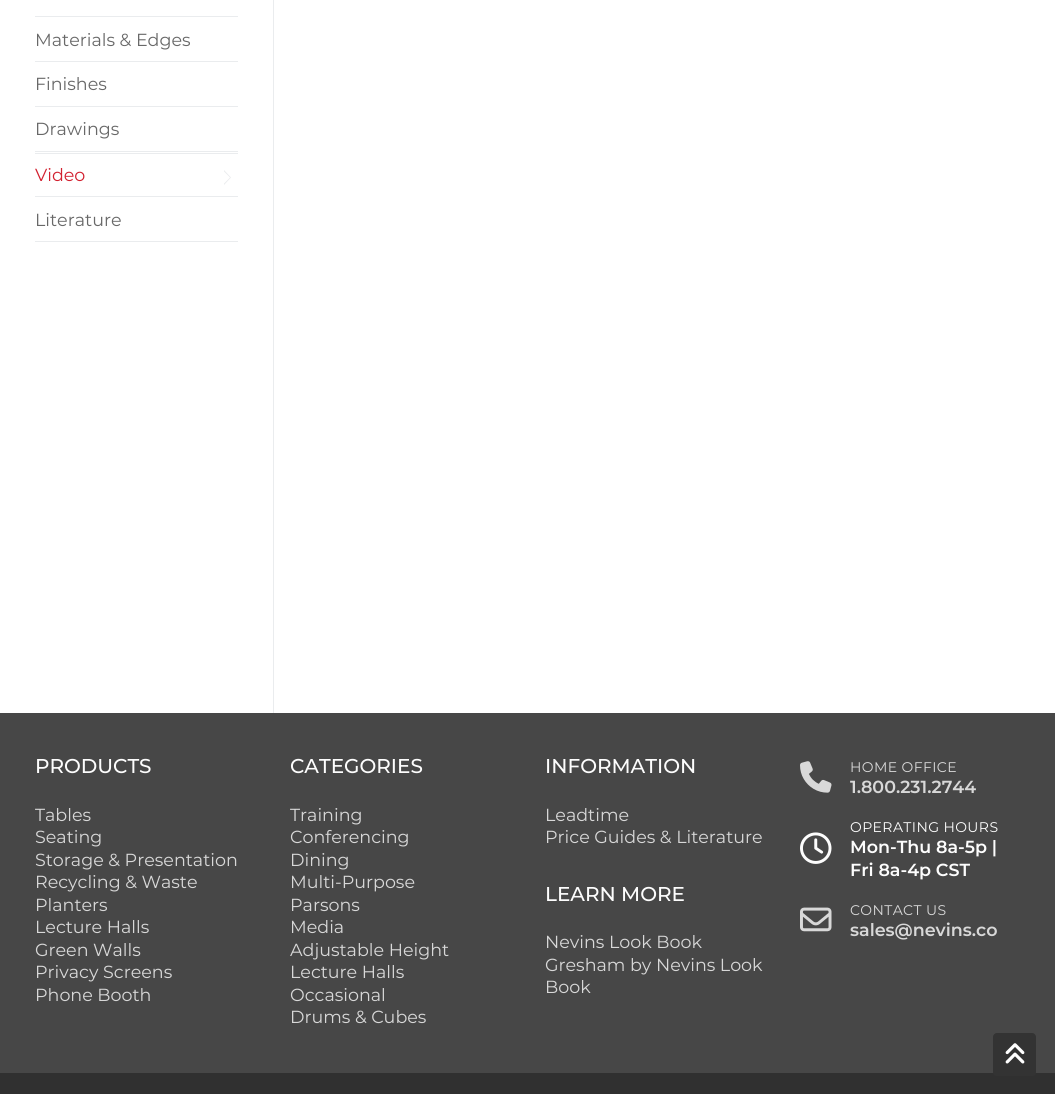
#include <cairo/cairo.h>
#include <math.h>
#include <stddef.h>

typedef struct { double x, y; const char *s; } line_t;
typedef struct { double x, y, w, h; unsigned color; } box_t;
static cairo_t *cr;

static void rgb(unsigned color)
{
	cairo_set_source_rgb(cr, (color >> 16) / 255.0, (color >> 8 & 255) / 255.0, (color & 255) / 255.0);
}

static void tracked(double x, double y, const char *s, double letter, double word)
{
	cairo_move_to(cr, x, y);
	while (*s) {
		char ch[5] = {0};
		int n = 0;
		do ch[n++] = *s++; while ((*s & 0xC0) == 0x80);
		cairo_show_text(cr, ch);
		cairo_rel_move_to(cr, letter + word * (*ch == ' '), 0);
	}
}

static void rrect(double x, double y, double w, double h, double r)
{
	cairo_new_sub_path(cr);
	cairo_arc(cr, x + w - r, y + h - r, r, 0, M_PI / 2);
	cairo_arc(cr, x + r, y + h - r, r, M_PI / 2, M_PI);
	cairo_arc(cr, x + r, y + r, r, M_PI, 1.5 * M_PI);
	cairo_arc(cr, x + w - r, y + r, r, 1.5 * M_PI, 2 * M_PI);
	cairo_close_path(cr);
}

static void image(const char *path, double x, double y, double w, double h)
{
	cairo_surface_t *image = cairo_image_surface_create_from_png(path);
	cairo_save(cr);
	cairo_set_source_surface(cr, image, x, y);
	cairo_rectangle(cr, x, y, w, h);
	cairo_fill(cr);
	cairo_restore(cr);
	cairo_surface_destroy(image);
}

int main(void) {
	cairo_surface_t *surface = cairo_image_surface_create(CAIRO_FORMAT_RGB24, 1055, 1094);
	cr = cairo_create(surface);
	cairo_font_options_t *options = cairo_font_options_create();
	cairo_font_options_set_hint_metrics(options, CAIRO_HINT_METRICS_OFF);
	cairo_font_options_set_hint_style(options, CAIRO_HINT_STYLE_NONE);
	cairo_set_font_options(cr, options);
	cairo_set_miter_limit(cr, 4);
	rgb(0xffffff);
	cairo_paint(cr);
	{
		static const box_t items[] = {
			{35, 16, 203, 1, 0xeaecee},
			{35, 61, 203, 1, 0xeaecee},
			{35, 106, 203, 1, 0xeaecee},
			{35, 151, 203, 1, 0xeaecee},
			{35, 153, 203, 1, 0xeaecee},
			{35, 196, 203, 1, 0xeaecee},
		};
		for (size_t i = 0; i < sizeof items / sizeof *items; i++) {
			rgb(items[i].color);
			cairo_rectangle(cr, items[i].x, items[i].y, items[i].w, items[i].h);
			cairo_fill(cr);
		}
	}
	cairo_new_path(cr);
	cairo_move_to(cr, 224, 185);
	cairo_line_to(cr, 224, 170);
	cairo_line_to(cr, 231, 177.5);
	cairo_close_path(cr);
	cairo_fill(cr);
	rgb(0xffffff);
	cairo_new_path(cr);
	cairo_move_to(cr, 222.5, 185);
	cairo_line_to(cr, 222.5, 170);
	cairo_line_to(cr, 230, 177.5);
	cairo_close_path(cr);
	cairo_fill(cr);
	{
		static const box_t items[] = {
			{35, 241, 203, 1, 0xeaecee},
			{273, 0, 1, 713, 0xeaecee},
			{0, 713, 1055, 360, 0x474747},
		};
		for (size_t i = 0; i < sizeof items / sizeof *items; i++) {
			rgb(items[i].color);
			cairo_rectangle(cr, items[i].x, items[i].y, items[i].w, items[i].h);
			cairo_fill(cr);
		}
	}
	image("img/1.png", 800, 761, 32, 32);
	image("img/2.png", 800, 832, 32, 32);
	image("img/3.png", 800, 907, 32, 25);
	rgb(0x303030);
	cairo_rectangle(cr, 0, 1073, 1055, 21);
	cairo_fill(cr);
	rgb(0x333333);
	rrect(993, 1033, 43, 43, 4);
	cairo_fill(cr);
	image("img/4.png", 1005, 1043, 20, 21);
	cairo_select_font_face(cr, "Montserrat", CAIRO_FONT_SLANT_NORMAL, CAIRO_FONT_WEIGHT_NORMAL);
	cairo_set_font_size(cr, 17.5);
	rgb(0x686868);
	{
		static const line_t items[] = {
			{35, 46, "Materials & Edges"},
			{35, 90, "Finishes"},
			{35, 135, "Drawings"},
		};
		for (size_t i = 0; i < sizeof items / sizeof *items; i++) {
			cairo_move_to(cr, items[i].x, items[i].y);
			cairo_show_text(cr, items[i].s);
		}
	}
	rgb(0xd2202f);
	cairo_move_to(cr, 35, 181);
	cairo_show_text(cr, "Video");
	rgb(0x686868);
	cairo_move_to(cr, 35, 226);
	cairo_show_text(cr, "Literature");
	cairo_select_font_face(cr, "Montserrat Medium", CAIRO_FONT_SLANT_NORMAL, CAIRO_FONT_WEIGHT_NORMAL);
	cairo_set_font_size(cr, 20);
	rgb(0xfdfdfd);
	cairo_move_to(cr, 35, 773);
	cairo_show_text(cr, "PRODUCTS");
	cairo_select_font_face(cr, "Montserrat", CAIRO_FONT_SLANT_NORMAL, CAIRO_FONT_WEIGHT_NORMAL);
	cairo_set_font_size(cr, 17.5);
	rgb(0xd8d8d8);
	{
		static const line_t items[] = {
			{35, 821, "Tables"},
			{35, 843, "Seating"},
			{35, 866, "Storage & Presentation"},
			{35, 888, "Recycling & Waste"},
			{35, 911, "Planters"},
			{35, 933, "Lecture Halls"},
			{35, 956, "Green Walls"},
			{35, 978, "Privacy Screens"},
			{35, 1001, "Phone Booth"},
		};
		for (size_t i = 0; i < sizeof items / sizeof *items; i++) {
			cairo_move_to(cr, items[i].x, items[i].y);
			cairo_show_text(cr, items[i].s);
		}
	}
	cairo_select_font_face(cr, "Montserrat Medium", CAIRO_FONT_SLANT_NORMAL, CAIRO_FONT_WEIGHT_NORMAL);
	cairo_set_font_size(cr, 20);
	rgb(0xfdfdfd);
	cairo_move_to(cr, 290, 773);
	cairo_show_text(cr, "CATEGORIES");
	cairo_select_font_face(cr, "Montserrat", CAIRO_FONT_SLANT_NORMAL, CAIRO_FONT_WEIGHT_NORMAL);
	cairo_set_font_size(cr, 17.5);
	rgb(0xd8d8d8);
	{
		static const line_t items[] = {
			{290, 821, "Training"},
			{290, 843, "Conferencing"},
			{290, 866, "Dining"},
			{290, 888, "Multi-Purpose"},
			{290, 911, "Parsons"},
			{290, 933, "Media"},
			{290, 956, "Adjustable Height"},
			{290, 978, "Lecture Halls"},
			{290, 1001, "Occasional"},
			{290, 1023, "Drums & Cubes"},
		};
		for (size_t i = 0; i < sizeof items / sizeof *items; i++) {
			cairo_move_to(cr, items[i].x, items[i].y);
			cairo_show_text(cr, items[i].s);
		}
	}
	cairo_select_font_face(cr, "Montserrat Medium", CAIRO_FONT_SLANT_NORMAL, CAIRO_FONT_WEIGHT_NORMAL);
	cairo_set_font_size(cr, 20);
	rgb(0xfdfdfd);
	cairo_move_to(cr, 545, 773);
	cairo_show_text(cr, "INFORMATION");
	cairo_select_font_face(cr, "Montserrat", CAIRO_FONT_SLANT_NORMAL, CAIRO_FONT_WEIGHT_NORMAL);
	cairo_set_font_size(cr, 17.5);
	rgb(0xd8d8d8);
	cairo_move_to(cr, 545, 821);
	cairo_show_text(cr, "Leadtime");
	cairo_move_to(cr, 545, 843);
	cairo_show_text(cr, "Price Guides & Literature");
	cairo_select_font_face(cr, "Montserrat Medium", CAIRO_FONT_SLANT_NORMAL, CAIRO_FONT_WEIGHT_NORMAL);
	cairo_set_font_size(cr, 20);
	rgb(0xfdfdfd);
	cairo_move_to(cr, 545, 901);
	cairo_show_text(cr, "LEARN MORE");
	cairo_select_font_face(cr, "Montserrat", CAIRO_FONT_SLANT_NORMAL, CAIRO_FONT_WEIGHT_NORMAL);
	cairo_set_font_size(cr, 17.5);
	rgb(0xd8d8d8);
	{
		static const line_t items[] = {
			{545, 948, "Nevins Look Book"},
			{545, 971, "Gresham by Nevins Look"},
			{545, 993, "Book"},
		};
		for (size_t i = 0; i < sizeof items / sizeof *items; i++) {
			cairo_move_to(cr, items[i].x, items[i].y);
			cairo_show_text(cr, items[i].s);
		}
	}
	cairo_set_font_size(cr, 14);
	tracked(850, 772, "HOME OFFICE", 0.4, 0);
	cairo_select_font_face(cr, "Montserrat SemiBold", CAIRO_FONT_SLANT_NORMAL, CAIRO_FONT_WEIGHT_NORMAL);
	cairo_set_font_size(cr, 17.5);
	cairo_move_to(cr, 850, 793);
	cairo_show_text(cr, "1.800.231.2744");
	cairo_select_font_face(cr, "Montserrat", CAIRO_FONT_SLANT_NORMAL, CAIRO_FONT_WEIGHT_NORMAL);
	cairo_set_font_size(cr, 14);
	rgb(0xfdfdfd);
	tracked(850, 832, "OPERATING HOURS", 0.4, 0);
	cairo_select_font_face(cr, "Montserrat SemiBold", CAIRO_FONT_SLANT_NORMAL, CAIRO_FONT_WEIGHT_NORMAL);
	cairo_set_font_size(cr, 17.5);
	cairo_move_to(cr, 850, 853);
	cairo_show_text(cr, "Mon-Thu 8a-5p |");
	cairo_move_to(cr, 850, 876);
	cairo_show_text(cr, "Fri 8a-4p CST");
	cairo_select_font_face(cr, "Montserrat", CAIRO_FONT_SLANT_NORMAL, CAIRO_FONT_WEIGHT_NORMAL);
	cairo_set_font_size(cr, 14);
	rgb(0xd8d8d8);
	tracked(850, 915, "CONTACT US", 0.4, 0);
	cairo_select_font_face(cr, "Montserrat SemiBold", CAIRO_FONT_SLANT_NORMAL, CAIRO_FONT_WEIGHT_NORMAL);
	cairo_set_font_size(cr, 17.5);
	cairo_move_to(cr, 850, 936);
	cairo_show_text(cr, "sales@nevins.co");
	cairo_surface_write_to_png(surface, "page.png");
	cairo_font_options_destroy(options);
	cairo_destroy(cr);
	cairo_surface_destroy(surface);
	return 0;
}
